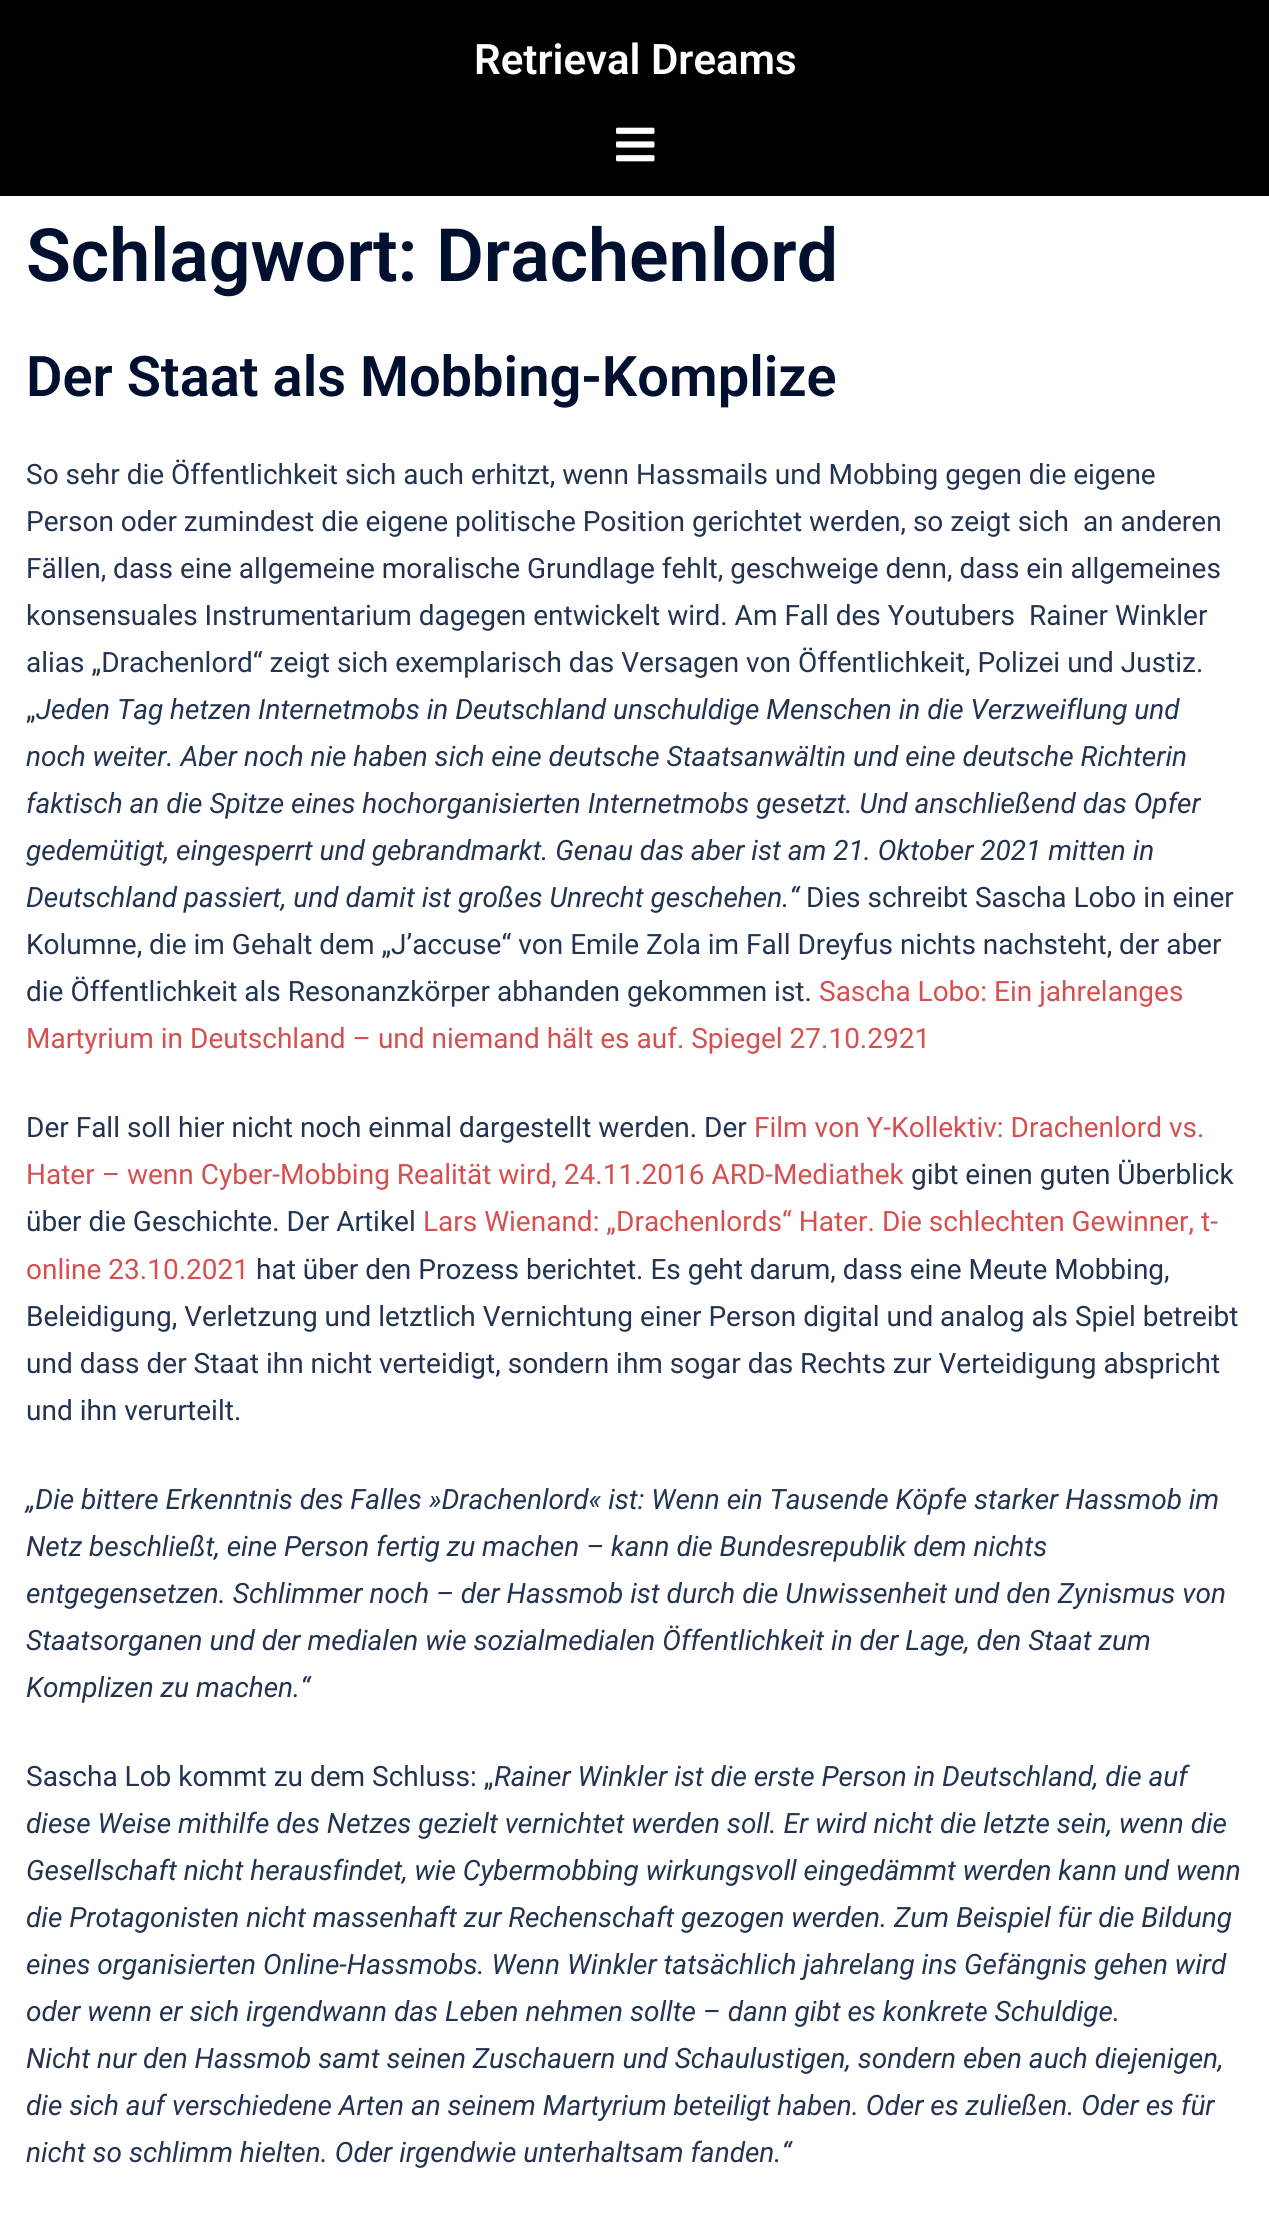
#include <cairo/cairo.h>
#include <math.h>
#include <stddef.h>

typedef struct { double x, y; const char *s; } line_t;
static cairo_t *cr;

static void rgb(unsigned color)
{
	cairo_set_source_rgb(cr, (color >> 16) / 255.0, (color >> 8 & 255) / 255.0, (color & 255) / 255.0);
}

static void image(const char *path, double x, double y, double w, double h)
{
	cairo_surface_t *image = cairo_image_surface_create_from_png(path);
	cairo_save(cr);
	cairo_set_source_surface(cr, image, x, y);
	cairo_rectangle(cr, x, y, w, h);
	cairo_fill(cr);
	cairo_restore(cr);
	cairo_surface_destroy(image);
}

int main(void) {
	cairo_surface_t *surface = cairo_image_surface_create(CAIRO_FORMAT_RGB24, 1269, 2239);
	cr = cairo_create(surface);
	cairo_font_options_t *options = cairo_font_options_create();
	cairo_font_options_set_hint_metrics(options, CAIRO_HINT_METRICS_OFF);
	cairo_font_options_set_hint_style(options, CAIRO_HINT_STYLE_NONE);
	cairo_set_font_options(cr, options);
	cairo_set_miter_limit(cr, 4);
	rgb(0xffffff);
	cairo_paint(cr);
	rgb(0x000000);
	cairo_rectangle(cr, 0, 0, 1269, 196);
	cairo_fill(cr);
	image("img/1.png", 616, 127, 39, 35);
	cairo_select_font_face(cr, "Roboto SemiBold", CAIRO_FONT_SLANT_NORMAL, CAIRO_FONT_WEIGHT_NORMAL);
	cairo_set_font_size(cr, 42);
	rgb(0xffffff);
	cairo_move_to(cr, 474, 74);
	cairo_show_text(cr, "Retrieval Dreams");
	cairo_set_font_size(cr, 73.5);
	rgb(0x00102e);
	cairo_move_to(cr, 26, 281);
	cairo_show_text(cr, "Schlagwort: Drachenlord");
	cairo_set_font_size(cr, 56);
	cairo_move_to(cr, 26, 396);
	cairo_show_text(cr, "Der Staat als Mobbing-Komplize");
	cairo_select_font_face(cr, "Roboto", CAIRO_FONT_SLANT_NORMAL, CAIRO_FONT_WEIGHT_NORMAL);
	cairo_set_font_size(cr, 28);
	rgb(0x233452);
	{
		static const line_t items[] = {
			{26, 484, "So sehr die Öffentlichkeit sich auch erhitzt, wenn Hassmails und Mobbing gegen die eigene"},
			{26, 531, "Person oder zumindest die eigene politische Position gerichtet werden, so zeigt sich  an anderen"},
			{26, 578, "Fällen, dass eine allgemeine moralische Grundlage fehlt, geschweige denn, dass ein allgemeines"},
			{26, 625, "konsensuales Instrumentarium dagegen entwickelt wird. Am Fall des Youtubers  Rainer Winkler"},
			{26, 672, "alias „Drachenlord“ zeigt sich exemplarisch das Versagen von Öffentlichkeit, Polizei und Justiz."},
			{26, 719, "„"},
		};
		for (size_t i = 0; i < sizeof items / sizeof *items; i++) {
			cairo_move_to(cr, items[i].x, items[i].y);
			cairo_show_text(cr, items[i].s);
		}
	}
	cairo_select_font_face(cr, "Roboto", CAIRO_FONT_SLANT_ITALIC, CAIRO_FONT_WEIGHT_NORMAL);
	{
		static const line_t items[] = {
			{36, 719, "Jeden Tag hetzen Internetmobs in Deutschland unschuldige Menschen in die Verzweiflung und"},
			{26, 766, "noch weiter. Aber noch nie haben sich eine deutsche Staatsanwältin und eine deutsche Richterin"},
			{26, 813, "faktisch an die Spitze eines hochorganisierten Internetmobs gesetzt. Und anschließend das Opfer"},
			{26, 860, "gedemütigt, eingesperrt und gebrandmarkt. Genau das aber ist am 21. Oktober 2021 mitten in"},
			{26, 907, "Deutschland passiert, und damit ist großes Unrecht geschehen.“"},
		};
		for (size_t i = 0; i < sizeof items / sizeof *items; i++) {
			cairo_move_to(cr, items[i].x, items[i].y);
			cairo_show_text(cr, items[i].s);
		}
	}
	cairo_select_font_face(cr, "Roboto", CAIRO_FONT_SLANT_NORMAL, CAIRO_FONT_WEIGHT_NORMAL);
	{
		static const line_t items[] = {
			{806, 907, "Dies schreibt Sascha Lobo in einer"},
			{26, 954, "Kolumne, die im Gehalt dem „J’accuse“ von Emile Zola im Fall Dreyfus nichts nachsteht, der aber"},
			{26, 1001, "die Öffentlichkeit als Resonanzkörper abhanden gekommen ist."},
		};
		for (size_t i = 0; i < sizeof items / sizeof *items; i++) {
			cairo_move_to(cr, items[i].x, items[i].y);
			cairo_show_text(cr, items[i].s);
		}
	}
	rgb(0xd65050);
	cairo_move_to(cr, 819, 1001);
	cairo_show_text(cr, "Sascha Lobo: Ein jahrelanges");
	cairo_move_to(cr, 26, 1048);
	cairo_show_text(cr, "Martyrium in Deutschland – und niemand hält es auf. Spiegel 27.10.2921");
	rgb(0x233452);
	cairo_move_to(cr, 26, 1137);
	cairo_show_text(cr, "Der Fall soll hier nicht noch einmal dargestellt werden. Der");
	rgb(0xd65050);
	cairo_move_to(cr, 754, 1137);
	cairo_show_text(cr, "Film von Y-Kollektiv: Drachenlord vs.");
	cairo_move_to(cr, 26, 1184);
	cairo_show_text(cr, "Hater – wenn Cyber-Mobbing Realität wird, 24.11.2016 ARD-Mediathek");
	rgb(0x233452);
	cairo_move_to(cr, 911, 1184);
	cairo_show_text(cr, "gibt einen guten Überblick");
	cairo_move_to(cr, 26, 1231);
	cairo_show_text(cr, "über die Geschichte. Der Artikel");
	rgb(0xd65050);
	cairo_move_to(cr, 423, 1231);
	cairo_show_text(cr, "Lars Wienand: „Drachenlords“ Hater. Die schlechten Gewinner, t-");
	cairo_move_to(cr, 26, 1279);
	cairo_show_text(cr, "online 23.10.2021");
	rgb(0x233452);
	{
		static const line_t items[] = {
			{256, 1279, "hat über den Prozess berichtet. Es geht darum, dass eine Meute Mobbing,"},
			{26, 1326, "Beleidigung, Verletzung und letztlich Vernichtung einer Person digital und analog als Spiel betreibt"},
			{26, 1373, "und dass der Staat ihn nicht verteidigt, sondern ihm sogar das Rechts zur Verteidigung abspricht"},
			{26, 1420, "und ihn verurteilt."},
		};
		for (size_t i = 0; i < sizeof items / sizeof *items; i++) {
			cairo_move_to(cr, items[i].x, items[i].y);
			cairo_show_text(cr, items[i].s);
		}
	}
	cairo_select_font_face(cr, "Roboto", CAIRO_FONT_SLANT_ITALIC, CAIRO_FONT_WEIGHT_NORMAL);
	{
		static const line_t items[] = {
			{26, 1509, "„Die bittere Erkenntnis des Falles »Drachenlord« ist: Wenn ein Tausende Köpfe starker Hassmob im"},
			{26, 1556, "Netz beschließt, eine Person fertig zu machen – kann die Bundesrepublik dem nichts"},
			{26, 1603, "entgegensetzen. Schlimmer noch – der Hassmob ist durch die Unwissenheit und den Zynismus von"},
			{26, 1650, "Staatsorganen und der medialen wie sozialmedialen Öffentlichkeit in der Lage, den Staat zum"},
			{26, 1697, "Komplizen zu machen.“"},
		};
		for (size_t i = 0; i < sizeof items / sizeof *items; i++) {
			cairo_move_to(cr, items[i].x, items[i].y);
			cairo_show_text(cr, items[i].s);
		}
	}
	cairo_select_font_face(cr, "Roboto", CAIRO_FONT_SLANT_NORMAL, CAIRO_FONT_WEIGHT_NORMAL);
	cairo_move_to(cr, 26, 1786);
	cairo_show_text(cr, "Sascha Lob kommt zu dem Schluss: „");
	cairo_select_font_face(cr, "Roboto", CAIRO_FONT_SLANT_ITALIC, CAIRO_FONT_WEIGHT_NORMAL);
	{
		static const line_t items[] = {
			{494, 1786, "Rainer Winkler ist die erste Person in Deutschland, die auf"},
			{26, 1833, "diese Weise mithilfe des Netzes gezielt vernichtet werden soll. Er wird nicht die letzte sein, wenn die"},
			{26, 1880, "Gesellschaft nicht herausfindet, wie Cybermobbing wirkungsvoll eingedämmt werden kann und wenn"},
			{26, 1927, "die Protagonisten nicht massenhaft zur Rechenschaft gezogen werden. Zum Beispiel für die Bildung"},
			{26, 1974, "eines organisierten Online-Hassmobs. Wenn Winkler tatsächlich jahrelang ins Gefängnis gehen wird"},
			{26, 2021, "oder wenn er sich irgendwann das Leben nehmen sollte – dann gibt es konkrete Schuldige."},
			{26, 2068, "Nicht nur den Hassmob samt seinen Zuschauern und Schaulustigen, sondern eben auch diejenigen,"},
			{26, 2115, "die sich auf verschiedene Arten an seinem Martyrium beteiligt haben. Oder es zuließen. Oder es für"},
			{26, 2162, "nicht so schlimm hielten. Oder irgendwie unterhaltsam fanden.“"},
		};
		for (size_t i = 0; i < sizeof items / sizeof *items; i++) {
			cairo_move_to(cr, items[i].x, items[i].y);
			cairo_show_text(cr, items[i].s);
		}
	}
	cairo_surface_write_to_png(surface, "page.png");
	cairo_font_options_destroy(options);
	cairo_destroy(cr);
	cairo_surface_destroy(surface);
	return 0;
}
